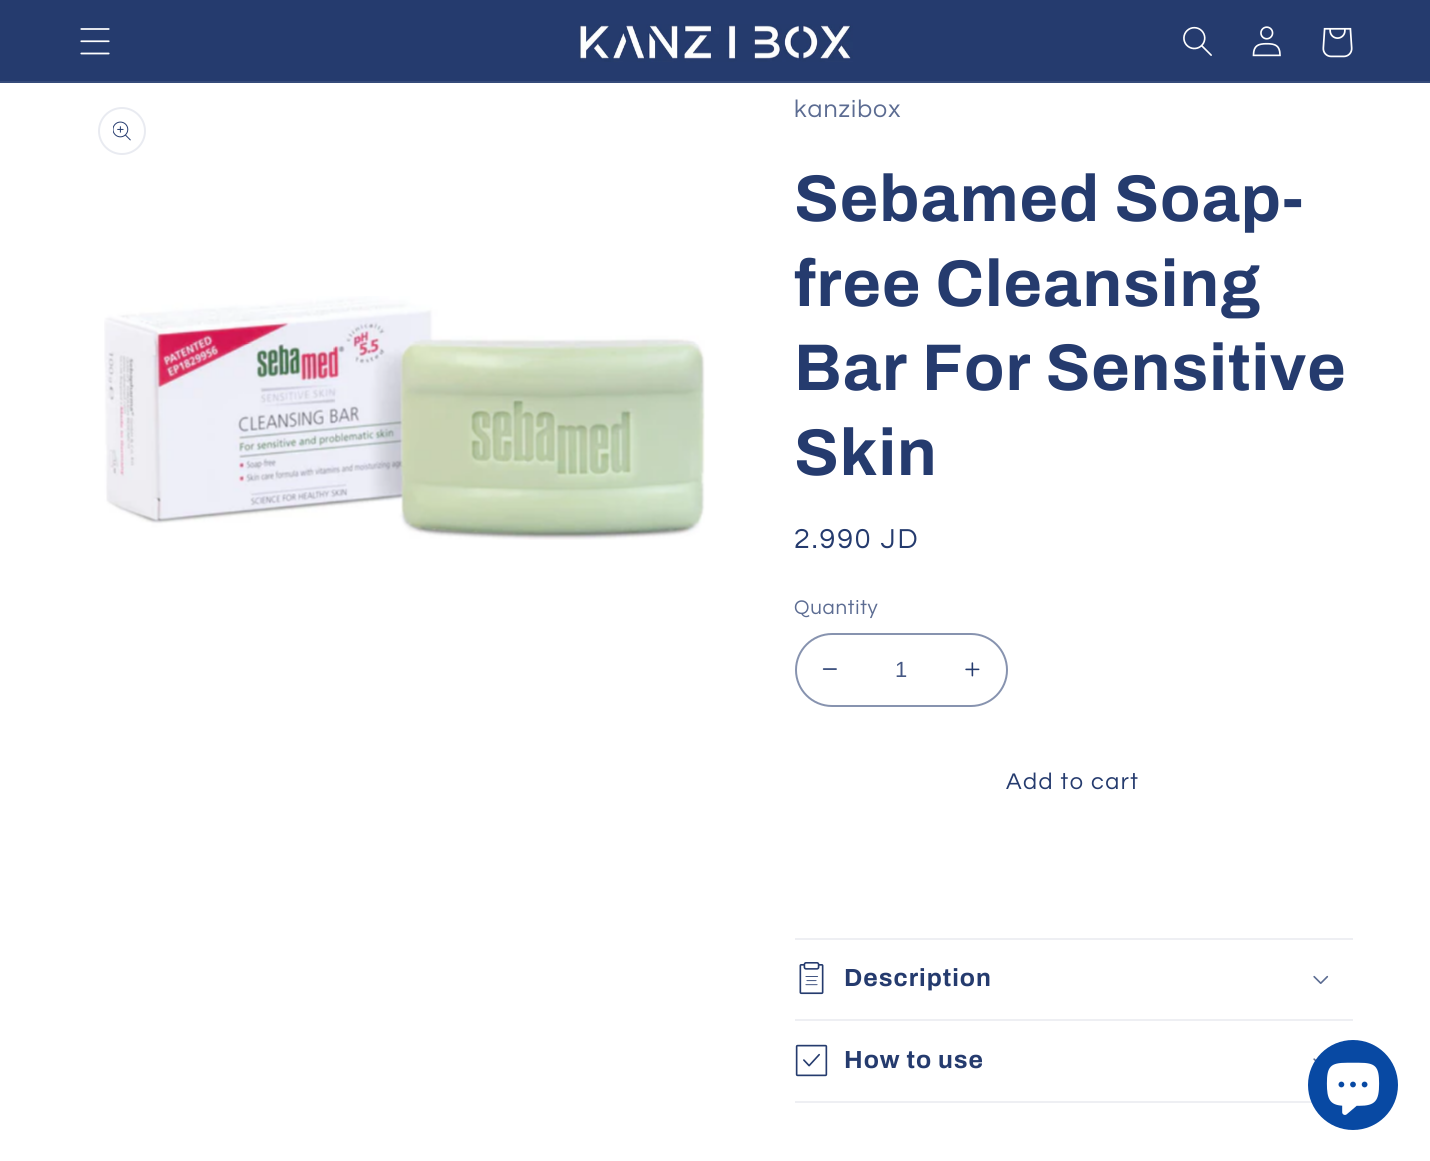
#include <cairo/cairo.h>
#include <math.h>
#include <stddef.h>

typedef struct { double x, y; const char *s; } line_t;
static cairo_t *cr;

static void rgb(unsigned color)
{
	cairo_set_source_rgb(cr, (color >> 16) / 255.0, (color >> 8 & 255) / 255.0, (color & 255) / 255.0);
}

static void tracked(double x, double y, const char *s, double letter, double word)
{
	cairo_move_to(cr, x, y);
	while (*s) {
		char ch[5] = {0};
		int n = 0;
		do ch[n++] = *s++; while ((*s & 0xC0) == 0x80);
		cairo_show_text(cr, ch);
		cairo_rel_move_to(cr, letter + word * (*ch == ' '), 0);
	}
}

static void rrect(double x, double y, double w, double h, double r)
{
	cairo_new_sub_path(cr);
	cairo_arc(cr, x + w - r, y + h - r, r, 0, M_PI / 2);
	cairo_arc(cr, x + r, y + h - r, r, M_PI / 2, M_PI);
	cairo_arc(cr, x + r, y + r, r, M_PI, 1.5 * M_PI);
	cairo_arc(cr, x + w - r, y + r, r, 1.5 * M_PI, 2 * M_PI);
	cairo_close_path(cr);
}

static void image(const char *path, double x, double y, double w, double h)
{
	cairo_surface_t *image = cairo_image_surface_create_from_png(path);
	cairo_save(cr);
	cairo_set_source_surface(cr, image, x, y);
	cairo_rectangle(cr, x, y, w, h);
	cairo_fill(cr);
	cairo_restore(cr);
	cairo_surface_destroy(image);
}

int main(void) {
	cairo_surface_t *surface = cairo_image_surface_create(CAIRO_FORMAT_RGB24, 1430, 1161);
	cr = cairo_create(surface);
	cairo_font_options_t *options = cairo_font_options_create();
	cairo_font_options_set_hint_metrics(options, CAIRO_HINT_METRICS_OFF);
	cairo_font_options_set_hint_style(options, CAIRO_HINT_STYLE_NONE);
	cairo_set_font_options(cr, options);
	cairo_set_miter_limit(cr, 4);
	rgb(0xffffff);
	cairo_paint(cr);
	rgb(0x253b6e);
	cairo_rectangle(cr, 0, 0, 1430, 81);
	cairo_fill(cr);
	rgb(0x364b7a);
	cairo_rectangle(cr, 0, 81, 1430, 2);
	cairo_fill(cr);
	image("img/1.png", 80, 28, 30, 27);
	image("img/2.png", 579, 24, 274, 38);
	image("img/3.png", 1183, 26, 29, 30);
	image("img/4.png", 1252, 26, 29, 31);
	image("img/5.png", 1322, 27, 31, 31);
	cairo_arc(cr, 122, 131, 23, 0, 2 * M_PI);
	rgb(0xe9ebf1);
	cairo_stroke(cr);
	image("img/6.png", 113, 121, 18, 20);
	image("img/7.png", 104, 296, 601, 244);
	image("img/8.png", 822, 668, 15, 2);
	image("img/9.png", 965, 662, 15, 15);
	rrect(796, 634, 211, 72, 36);
	rgb(0x8793af);
	cairo_stroke(cr);
	rgb(0xeeeff3);
	cairo_rectangle(cr, 795, 938, 558, 2);
	cairo_fill(cr);
	cairo_rectangle(cr, 795, 1019, 558, 2);
	cairo_fill(cr);
	image("img/10.png", 799, 962, 25, 33);
	image("img/11.png", 1313, 975, 16, 9);
	cairo_rectangle(cr, 795, 1101, 517, 2);
	cairo_fill(cr);
	image("img/12.png", 795, 1044, 33, 33);
	image("img/13.png", 1313, 1058, 3, 3);
	rgb(0x0849a3);
	cairo_arc(cr, 1353, 1085, 45, 0, 2 * M_PI);
	cairo_fill(cr);
	image("img/14.png", 1326, 1062, 54, 53);
	cairo_select_font_face(cr, "Questrial", CAIRO_FONT_SLANT_NORMAL, CAIRO_FONT_WEIGHT_NORMAL);
	cairo_set_font_size(cr, 25);
	rgb(0x5c6c92);
	tracked(794, 117, "kanzibox", 1, 0);
	cairo_select_font_face(cr, "Archivo", CAIRO_FONT_SLANT_NORMAL, CAIRO_FONT_WEIGHT_BOLD);
	cairo_set_font_size(cr, 66);
	rgb(0x253b6e);
	{
		static const line_t items[] = {
			{794, 221, "Sebamed Soap-"},
			{794, 306, "free Cleansing"},
			{794, 390, "Bar For Sensitive"},
			{794, 475, "Skin"},
		};
		for (size_t i = 0; i < sizeof items / sizeof *items; i++) {
			tracked(items[i].x, items[i].y, items[i].s, 1, 0);
		}
	}
	cairo_select_font_face(cr, "Questrial", CAIRO_FONT_SLANT_NORMAL, CAIRO_FONT_WEIGHT_NORMAL);
	cairo_set_font_size(cr, 28.5);
	tracked(794, 548, "2.990 JD", 2, 0);
	cairo_set_font_size(cr, 20.5);
	rgb(0x5c6c92);
	tracked(794, 614, "Quantity", 0.75, 0);
	cairo_select_font_face(cr, "Liberation Sans", CAIRO_FONT_SLANT_NORMAL, CAIRO_FONT_WEIGHT_NORMAL);
	cairo_set_font_size(cr, 22);
	rgb(0x465884);
	cairo_move_to(cr, 895, 677);
	cairo_show_text(cr, "1");
	cairo_select_font_face(cr, "Questrial", CAIRO_FONT_SLANT_NORMAL, CAIRO_FONT_WEIGHT_NORMAL);
	cairo_set_font_size(cr, 23.5);
	rgb(0x253b6e);
	tracked(1006, 789, "Add to cart", 1.5, 0);
	cairo_select_font_face(cr, "Archivo", CAIRO_FONT_SLANT_NORMAL, CAIRO_FONT_WEIGHT_BOLD);
	cairo_set_font_size(cr, 24.75);
	tracked(844, 986, "Description", 1, 0);
	tracked(844, 1068, "How to use", 1, 0);
	cairo_surface_write_to_png(surface, "page.png");
	cairo_font_options_destroy(options);
	cairo_destroy(cr);
	cairo_surface_destroy(surface);
	return 0;
}
